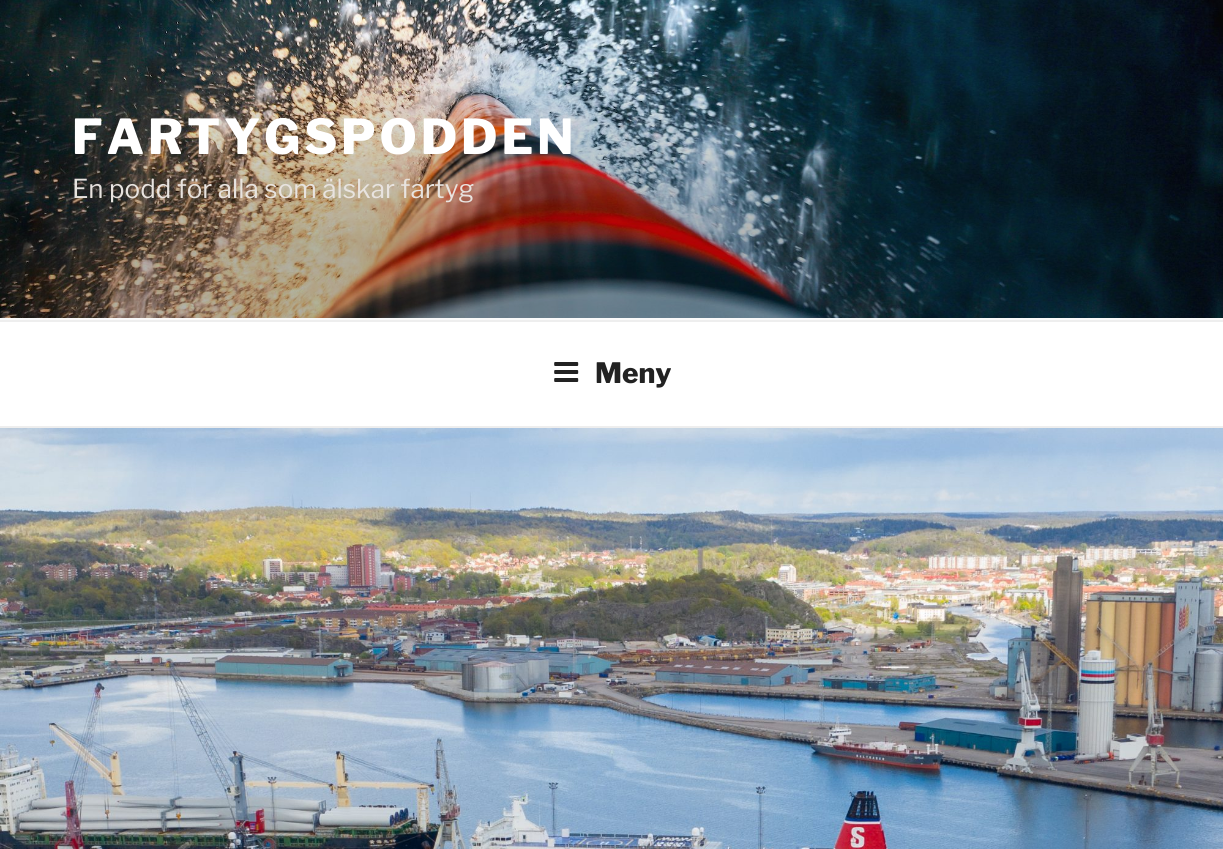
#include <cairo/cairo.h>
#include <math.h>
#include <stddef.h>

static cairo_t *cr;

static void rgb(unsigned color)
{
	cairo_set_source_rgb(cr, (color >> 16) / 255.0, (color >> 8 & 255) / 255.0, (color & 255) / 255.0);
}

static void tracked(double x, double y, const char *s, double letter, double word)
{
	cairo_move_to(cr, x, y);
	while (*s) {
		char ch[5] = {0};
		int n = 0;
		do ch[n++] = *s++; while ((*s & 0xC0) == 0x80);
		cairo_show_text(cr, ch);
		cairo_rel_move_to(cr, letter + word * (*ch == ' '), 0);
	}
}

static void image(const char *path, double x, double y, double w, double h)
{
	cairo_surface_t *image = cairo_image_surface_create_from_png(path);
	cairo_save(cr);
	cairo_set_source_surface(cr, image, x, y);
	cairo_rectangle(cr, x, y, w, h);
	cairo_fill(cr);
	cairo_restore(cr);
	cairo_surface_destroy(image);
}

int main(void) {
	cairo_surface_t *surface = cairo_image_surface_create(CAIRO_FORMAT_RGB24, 1223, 849);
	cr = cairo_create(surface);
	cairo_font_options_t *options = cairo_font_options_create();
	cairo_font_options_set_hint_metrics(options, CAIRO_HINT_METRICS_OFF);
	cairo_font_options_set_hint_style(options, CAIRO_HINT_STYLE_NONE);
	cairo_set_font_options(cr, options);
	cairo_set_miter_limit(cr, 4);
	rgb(0xffffff);
	cairo_paint(cr);
	rgb(0xfafafa);
	cairo_rectangle(cr, 0, 318, 1223, 2);
	cairo_fill(cr);
	image("img/1.png", 0, 0, 1223, 318);
	rgb(0xeeeeee);
	cairo_rectangle(cr, 0, 320, 1223, 2);
	cairo_fill(cr);
	cairo_rectangle(cr, 0, 426, 1223, 2);
	cairo_fill(cr);
	image("img/2.png", 554, 362, 25, 20);
	image("img/3.png", 0, 428, 1223, 421);
	cairo_select_font_face(cr, "Libre Franklin ExtraBold", CAIRO_FONT_SLANT_NORMAL, CAIRO_FONT_WEIGHT_NORMAL);
	cairo_set_font_size(cr, 48);
	rgb(0xffffff);
	tracked(72, 154, "FARTYGSPODDEN", 3.8, 0);
	cairo_select_font_face(cr, "Libre Franklin", CAIRO_FONT_SLANT_NORMAL, CAIRO_FONT_WEIGHT_NORMAL);
	cairo_set_font_size(cr, 26);
	rgb(0xe8e3df);
	cairo_move_to(cr, 72, 198);
	cairo_show_text(cr, "En podd för alla som älskar fartyg");
	cairo_select_font_face(cr, "Libre Franklin ExtraBold", CAIRO_FONT_SLANT_NORMAL, CAIRO_FONT_WEIGHT_NORMAL);
	cairo_set_font_size(cr, 28);
	rgb(0x222222);
	cairo_move_to(cr, 595, 383);
	cairo_show_text(cr, "Meny");
	cairo_surface_write_to_png(surface, "page.png");
	cairo_font_options_destroy(options);
	cairo_destroy(cr);
	cairo_surface_destroy(surface);
	return 0;
}
